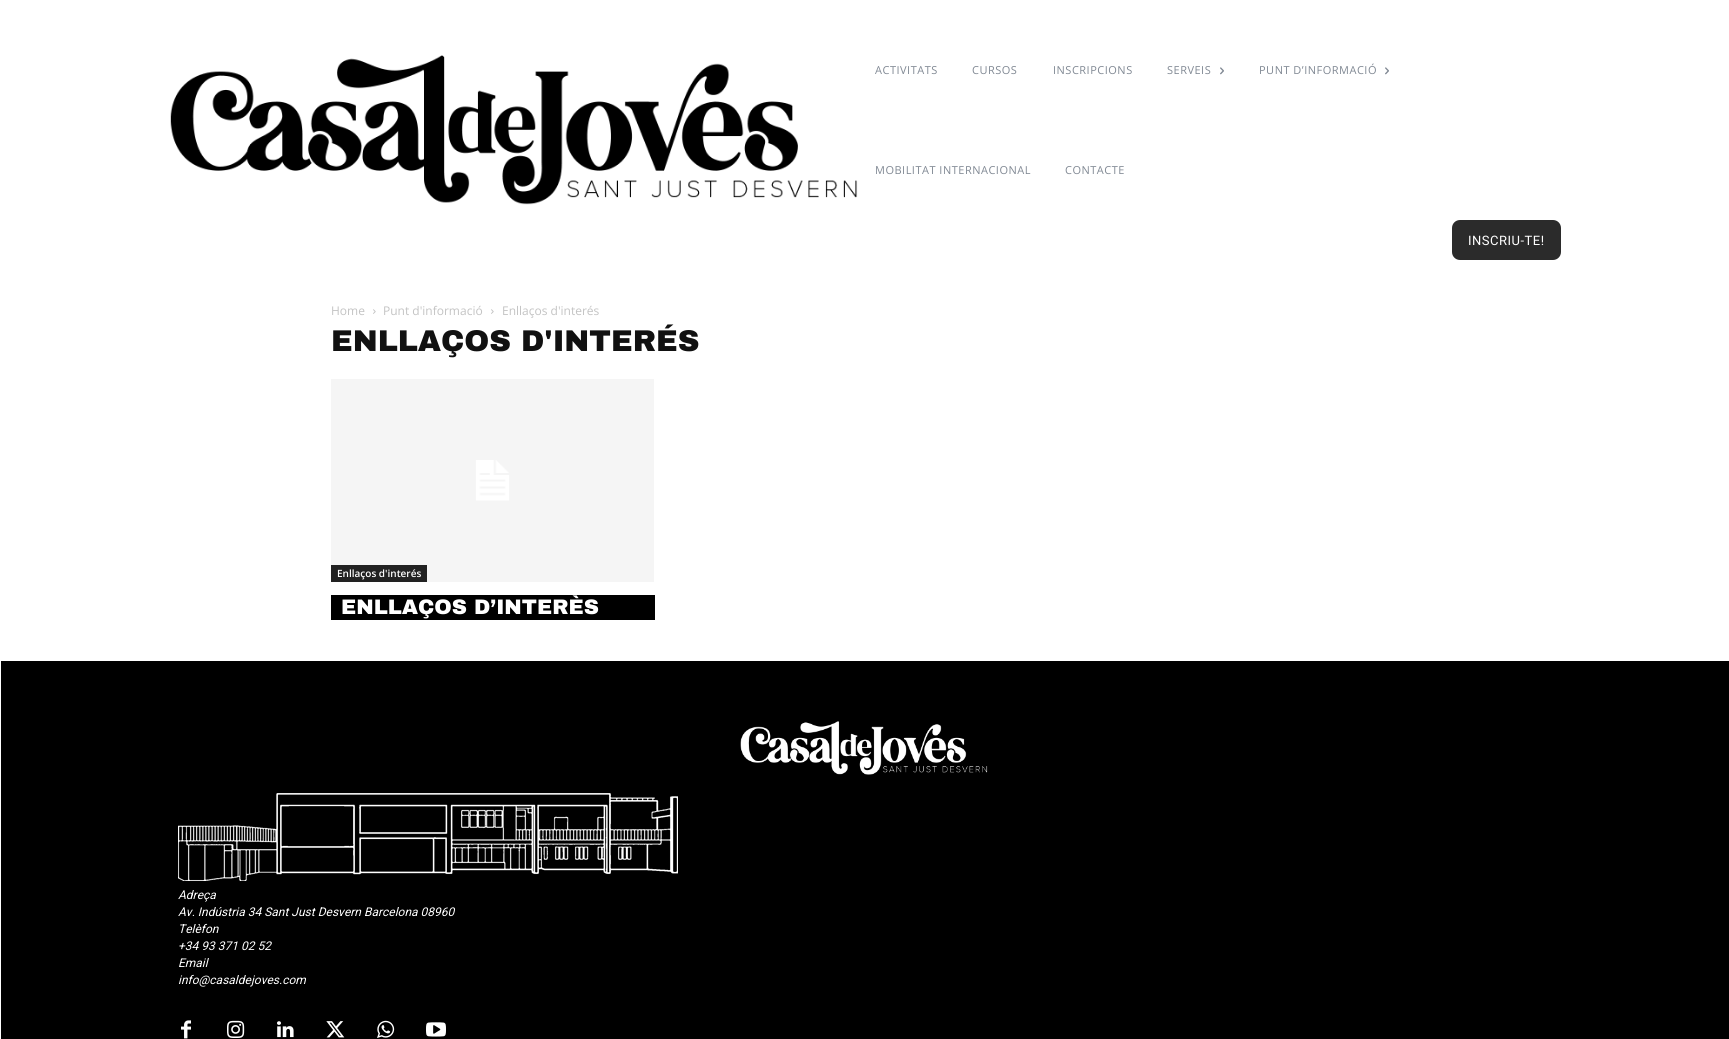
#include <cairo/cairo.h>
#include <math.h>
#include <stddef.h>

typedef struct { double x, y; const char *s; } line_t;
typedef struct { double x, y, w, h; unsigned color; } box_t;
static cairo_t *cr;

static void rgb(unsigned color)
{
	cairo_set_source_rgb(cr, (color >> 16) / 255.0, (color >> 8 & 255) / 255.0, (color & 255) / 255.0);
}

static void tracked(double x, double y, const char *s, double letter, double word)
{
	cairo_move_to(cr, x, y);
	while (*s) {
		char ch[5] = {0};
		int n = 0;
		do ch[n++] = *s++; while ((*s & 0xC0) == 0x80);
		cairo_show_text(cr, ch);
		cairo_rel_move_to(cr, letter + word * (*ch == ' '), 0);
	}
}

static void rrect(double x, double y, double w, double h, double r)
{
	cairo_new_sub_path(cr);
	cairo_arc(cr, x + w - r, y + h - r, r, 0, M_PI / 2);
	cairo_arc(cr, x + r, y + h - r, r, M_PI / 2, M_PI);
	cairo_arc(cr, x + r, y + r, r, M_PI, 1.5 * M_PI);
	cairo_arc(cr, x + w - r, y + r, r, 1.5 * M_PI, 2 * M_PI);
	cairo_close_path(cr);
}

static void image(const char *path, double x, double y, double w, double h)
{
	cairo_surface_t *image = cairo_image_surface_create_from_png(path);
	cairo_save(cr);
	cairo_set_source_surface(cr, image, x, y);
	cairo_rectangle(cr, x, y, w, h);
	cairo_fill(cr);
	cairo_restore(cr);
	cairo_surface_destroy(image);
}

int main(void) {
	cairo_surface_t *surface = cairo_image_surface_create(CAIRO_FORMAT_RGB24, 1729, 1039);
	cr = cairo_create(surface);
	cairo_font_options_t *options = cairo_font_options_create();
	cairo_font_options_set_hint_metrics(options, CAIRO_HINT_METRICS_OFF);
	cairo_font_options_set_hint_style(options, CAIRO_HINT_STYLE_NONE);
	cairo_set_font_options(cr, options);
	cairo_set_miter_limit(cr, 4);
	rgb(0xffffff);
	cairo_paint(cr);
	image("img/1.png", 170, 55, 688, 150);
	image("img/2.png", 1220, 67, 4, 8);
	image("img/2.png", 1385, 67, 4, 8);
	rgb(0x2b2b2b);
	rrect(1452, 220, 109, 40, 8);
	cairo_fill(cr);
	image("img/3.png", 373, 309, 3, 5);
	image("img/3.png", 491, 309, 3, 5);
	image("img/4.png", 331, 379, 323, 203);
	{
		static const box_t items[] = {
			{331, 565, 96, 17, 0x222222},
			{331, 595, 324, 25, 0x000000},
			{1, 661, 1728, 378, 0x000000},
		};
		for (size_t i = 0; i < sizeof items / sizeof *items; i++) {
			rgb(items[i].color);
			cairo_rectangle(cr, items[i].x, items[i].y, items[i].w, items[i].h);
			cairo_fill(cr);
		}
	}
	image("img/5.png", 740, 721, 248, 54);
	image("img/6.png", 178, 793, 500, 88);
	image("img/7.png", 181, 1020, 10, 19);
	image("img/8.png", 227, 1020, 18, 18);
	image("img/9.png", 277, 1021, 17, 17);
	image("img/10.png", 326, 1021, 19, 17);
	image("img/11.png", 377, 1020, 18, 18);
	image("img/12.png", 426, 1022, 20, 15);
	cairo_select_font_face(cr, "Open Sans", CAIRO_FONT_SLANT_NORMAL, CAIRO_FONT_WEIGHT_NORMAL);
	cairo_set_font_size(cr, 11);
	rgb(0x808893);
	{
		static const line_t items[] = {
			{875, 74, "ACTIVITATS"},
			{972, 74, "CURSOS"},
			{1053, 74, "INSCRIPCIONS"},
			{1167, 74, "SERVEIS"},
			{1259, 74, "PUNT D’INFORMACIÓ"},
			{875, 174, "MOBILITAT INTERNACIONAL"},
			{1065, 174, "CONTACTE"},
		};
		for (size_t i = 0; i < sizeof items / sizeof *items; i++) {
			tracked(items[i].x, items[i].y, items[i].s, 0.5, 0);
		}
	}
	cairo_select_font_face(cr, "Roboto", CAIRO_FONT_SLANT_NORMAL, CAIRO_FONT_WEIGHT_NORMAL);
	cairo_set_font_size(cr, 13);
	rgb(0xffffff);
	tracked(1468, 245, "INSCRIU-TE!", 0.5, 0);
	cairo_select_font_face(cr, "Open Sans", CAIRO_FONT_SLANT_NORMAL, CAIRO_FONT_WEIGHT_NORMAL);
	cairo_set_font_size(cr, 12);
	rgb(0xc3c3c3);
	{
		static const line_t items[] = {
			{331, 315, "Home"},
			{383, 315, "Punt d'informació"},
			{502, 315, "Enllaços d'interés"},
		};
		for (size_t i = 0; i < sizeof items / sizeof *items; i++) {
			cairo_move_to(cr, items[i].x, items[i].y);
			cairo_show_text(cr, items[i].s);
		}
	}
	cairo_select_font_face(cr, "Archivo Black Black", CAIRO_FONT_SLANT_NORMAL, CAIRO_FONT_WEIGHT_NORMAL);
	cairo_set_font_size(cr, 30);
	rgb(0x111111);
	cairo_move_to(cr, 331, 351);
	cairo_show_text(cr, "ENLLAÇOS D'INTERÉS");
	cairo_select_font_face(cr, "Open Sans SemiBold", CAIRO_FONT_SLANT_NORMAL, CAIRO_FONT_WEIGHT_NORMAL);
	cairo_set_font_size(cr, 10);
	rgb(0xffffff);
	cairo_move_to(cr, 337, 577);
	cairo_show_text(cr, "Enllaços d'interés");
	cairo_select_font_face(cr, "Archivo Black Black", CAIRO_FONT_SLANT_NORMAL, CAIRO_FONT_WEIGHT_NORMAL);
	cairo_set_font_size(cr, 21);
	cairo_move_to(cr, 341, 614);
	cairo_show_text(cr, "ENLLAÇOS D’INTERÈS");
	cairo_select_font_face(cr, "Roboto", CAIRO_FONT_SLANT_ITALIC, CAIRO_FONT_WEIGHT_NORMAL);
	cairo_set_font_size(cr, 12);
	{
		static const line_t items[] = {
			{178, 899, "Adreça"},
			{178, 916, "Av. Indústria 34 Sant Just Desvern Barcelona 08960"},
			{178, 933, "Telèfon"},
			{178, 950, "+34 93 371 02 52"},
			{178, 967, "Email"},
			{178, 984, "info@casaldejoves.com"},
		};
		for (size_t i = 0; i < sizeof items / sizeof *items; i++) {
			cairo_move_to(cr, items[i].x, items[i].y);
			cairo_show_text(cr, items[i].s);
		}
	}
	cairo_surface_write_to_png(surface, "page.png");
	cairo_font_options_destroy(options);
	cairo_destroy(cr);
	cairo_surface_destroy(surface);
	return 0;
}
